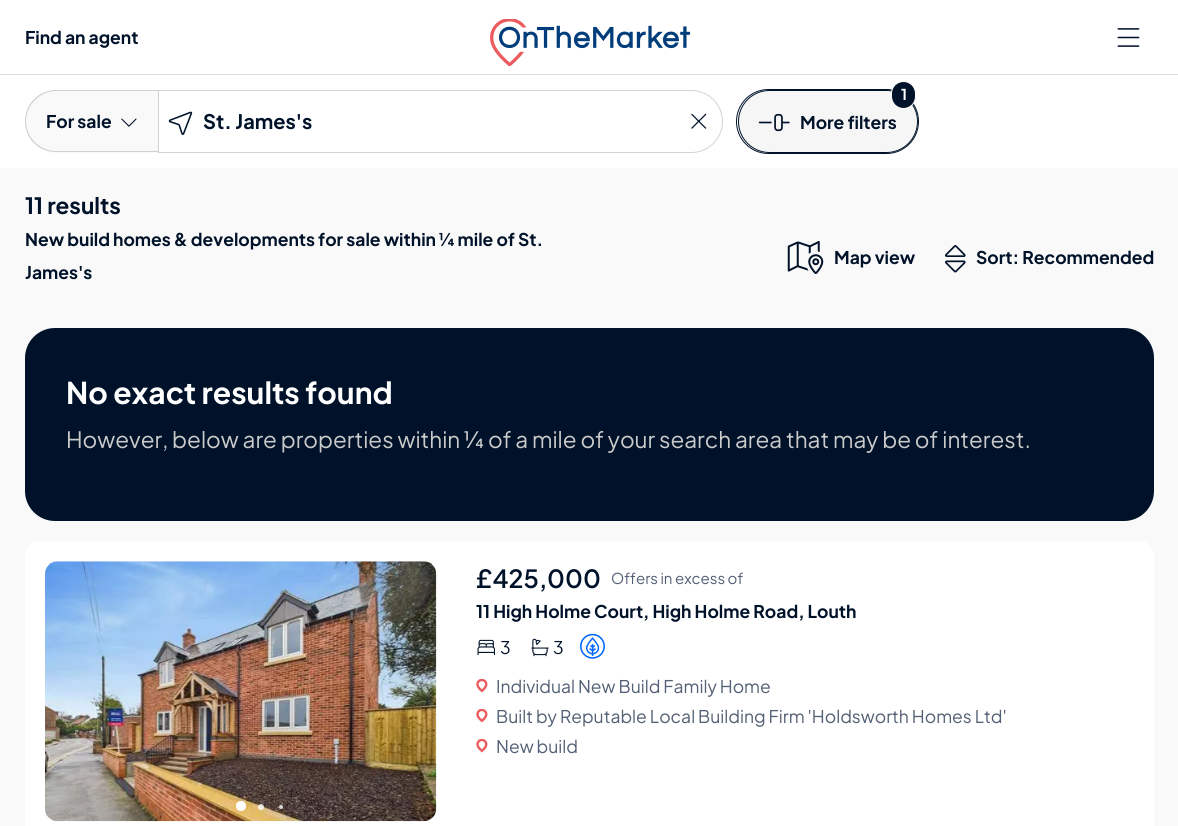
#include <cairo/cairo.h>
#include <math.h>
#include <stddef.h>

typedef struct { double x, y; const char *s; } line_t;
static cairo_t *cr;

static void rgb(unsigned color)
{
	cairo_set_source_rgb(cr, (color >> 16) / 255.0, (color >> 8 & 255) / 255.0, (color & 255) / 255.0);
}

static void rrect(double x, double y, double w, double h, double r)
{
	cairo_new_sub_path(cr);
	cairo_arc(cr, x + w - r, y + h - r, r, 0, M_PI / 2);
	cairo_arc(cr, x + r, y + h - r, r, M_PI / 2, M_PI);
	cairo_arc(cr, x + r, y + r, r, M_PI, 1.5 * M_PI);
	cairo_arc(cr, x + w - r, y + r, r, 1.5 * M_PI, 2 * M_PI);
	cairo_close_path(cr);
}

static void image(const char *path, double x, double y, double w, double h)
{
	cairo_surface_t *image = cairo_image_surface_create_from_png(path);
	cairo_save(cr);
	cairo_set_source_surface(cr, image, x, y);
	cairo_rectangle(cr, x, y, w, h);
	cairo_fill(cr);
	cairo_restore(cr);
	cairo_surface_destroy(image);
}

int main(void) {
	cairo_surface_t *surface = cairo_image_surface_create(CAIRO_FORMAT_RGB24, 1178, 826);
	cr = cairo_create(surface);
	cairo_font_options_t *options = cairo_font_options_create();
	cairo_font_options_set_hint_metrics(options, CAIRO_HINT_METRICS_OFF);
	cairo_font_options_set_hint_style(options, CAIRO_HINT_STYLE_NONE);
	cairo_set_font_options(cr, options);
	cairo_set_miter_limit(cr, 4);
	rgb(0xffffff);
	cairo_paint(cr);
	rgb(0xd9dce1);
	cairo_rectangle(cr, 0, 74, 1178, 1);
	cairo_fill(cr);
	image("img/1.png", 490, 19, 200, 47);
	image("img/2.png", 1117, 28, 23, 19);
	rgb(0xfaf9f9);
	cairo_new_path(cr);
	cairo_move_to(cr, 56.5, 90);
	cairo_line_to(cr, 158, 90);
	cairo_line_to(cr, 158, 153);
	cairo_line_to(cr, 56.5, 153);
	cairo_curve_to(cr, 39, 153, 25, 139, 25, 121.5);
	cairo_curve_to(cr, 25, 104, 39, 90, 56.5, 90);
	cairo_close_path(cr);
	cairo_fill(cr);
	cairo_set_source_rgba(cr, 0.631, 0.659, 0.702, 0.5);
	cairo_set_fill_rule(cr, CAIRO_FILL_RULE_EVEN_ODD);
	cairo_new_path(cr);
	cairo_move_to(cr, 56, 90);
	cairo_line_to(cr, 158, 90);
	cairo_line_to(cr, 158, 152);
	cairo_line_to(cr, 56, 152);
	cairo_curve_to(cr, 39, 152, 25, 139, 25, 121);
	cairo_curve_to(cr, 25, 104, 39, 90, 56, 90);
	cairo_close_path(cr);
	cairo_move_to(cr, 56, 91);
	cairo_line_to(cr, 158, 91);
	cairo_line_to(cr, 158, 151);
	cairo_line_to(cr, 56, 151);
	cairo_curve_to(cr, 40, 151, 26, 138, 26, 121);
	cairo_curve_to(cr, 26, 105, 40, 91, 56, 91);
	cairo_close_path(cr);
	cairo_fill(cr);
	image("img/3.png", 121, 118, 16, 9);
	cairo_new_path(cr);
	cairo_move_to(cr, 158.5, 90.5);
	cairo_line_to(cr, 691.5, 90.5);
	cairo_curve_to(cr, 708.5, 90.5, 722.5, 104.5, 722.5, 121.5);
	cairo_curve_to(cr, 722.5, 138.5, 708.5, 152.5, 691.5, 152.5);
	cairo_line_to(cr, 158.5, 152.5);
	cairo_close_path(cr);
	rgb(0xd0d4d9);
	cairo_set_line_width(cr, 1);
	cairo_stroke(cr);
	image("img/4.png", 168, 111, 25, 24);
	image("img/5.png", 691, 113, 16, 16);
	rrect(736.5, 89.5, 182, 64, 32);
	rgb(0x001229);
	cairo_stroke(cr);
	cairo_set_source_rgba(cr, 0.631, 0.659, 0.702, 0.1);
	rrect(738.5, 90.5, 179, 62, 31);
	cairo_fill_preserve(cr);
	rgb(0x001229);
	cairo_stroke(cr);
	rrect(891.5, 81.5, 24, 27, 12);
	cairo_fill_preserve(cr);
	rgb(0xffffff);
	cairo_stroke(cr);
	image("img/6.png", 758, 113, 32, 19);
	rgb(0xfaf9f9);
	cairo_rectangle(cr, 0, 168, 1178, 658);
	cairo_fill(cr);
	image("img/7.png", 787, 240, 37, 34);
	image("img/8.png", 945, 245, 21, 28);
	rgb(0x001229);
	rrect(25, 328, 1129, 193, 30);
	cairo_fill(cr);
	rgb(0xffffff);
	cairo_new_path(cr);
	cairo_move_to(cr, 40, 541);
	cairo_line_to(cr, 1139, 541);
	cairo_curve_to(cr, 1147.5, 541, 1154, 547.5, 1154, 556);
	cairo_line_to(cr, 1154, 826);
	cairo_line_to(cr, 25, 826);
	cairo_line_to(cr, 25, 556);
	cairo_curve_to(cr, 25, 547.5, 31.5, 541, 40, 541);
	cairo_close_path(cr);
	cairo_fill(cr);
	image("img/9.png", 45, 561, 392, 261);
	cairo_arc(cr, 241, 806, 5, 0, 2 * M_PI);
	cairo_fill(cr);
	cairo_set_source_rgba(cr, 1, 1, 1, 0.8);
	cairo_arc(cr, 261, 807, 3, 0, 2 * M_PI);
	cairo_fill(cr);
	cairo_arc(cr, 281, 807, 2, 0, 2 * M_PI);
	cairo_fill(cr);
	image("img/10.png", 477, 639, 18, 17);
	image("img/11.png", 531, 638, 18, 19);
	image("img/12.png", 580, 634, 25, 25);
	image("img/13.png", 476, 679, 12, 14);
	image("img/13.png", 476, 709, 12, 14);
	image("img/13.png", 476, 739, 12, 14);
	cairo_select_font_face(cr, "Plus Jakarta Sans", CAIRO_FONT_SLANT_NORMAL, CAIRO_FONT_WEIGHT_BOLD);
	cairo_set_font_size(cr, 17.5);
	rgb(0x001229);
	cairo_move_to(cr, 25, 44);
	cairo_show_text(cr, "Find an agent");
	cairo_move_to(cr, 46, 128);
	cairo_show_text(cr, "For sale");
	cairo_set_font_size(cr, 20);
	cairo_move_to(cr, 203, 129);
	cairo_show_text(cr, "St. James's");
	cairo_set_font_size(cr, 15);
	rgb(0xffffff);
	cairo_move_to(cr, 901, 100);
	cairo_show_text(cr, "1");
	cairo_set_font_size(cr, 17.5);
	rgb(0x001229);
	cairo_move_to(cr, 800, 129);
	cairo_show_text(cr, "More filters");
	cairo_set_font_size(cr, 22.5);
	cairo_move_to(cr, 25, 214);
	cairo_show_text(cr, "11 results");
	cairo_set_font_size(cr, 17.5);
	{
		static const line_t items[] = {
			{25, 246, "New build homes & developments for sale within ¼ mile of St."},
			{25, 279, "James's"},
			{834, 264, "Map view"},
			{976, 264, "Sort: Recommended"},
		};
		for (size_t i = 0; i < sizeof items / sizeof *items; i++) {
			cairo_move_to(cr, items[i].x, items[i].y);
			cairo_show_text(cr, items[i].s);
		}
	}
	cairo_set_font_size(cr, 30);
	rgb(0xffffff);
	cairo_move_to(cr, 66, 404);
	cairo_show_text(cr, "No exact results found");
	cairo_select_font_face(cr, "Plus Jakarta Sans", CAIRO_FONT_SLANT_NORMAL, CAIRO_FONT_WEIGHT_NORMAL);
	cairo_set_font_size(cr, 22.5);
	rgb(0xcbcbcb);
	cairo_move_to(cr, 66, 448);
	cairo_show_text(cr, "However, below are properties within ¼ of a mile of your search area that may be of interest.");
	cairo_select_font_face(cr, "Plus Jakarta Sans SemiBold", CAIRO_FONT_SLANT_NORMAL, CAIRO_FONT_WEIGHT_NORMAL);
	cairo_set_font_size(cr, 25);
	rgb(0x001229);
	cairo_move_to(cr, 476, 588);
	cairo_show_text(cr, "£425,000");
	cairo_select_font_face(cr, "Plus Jakarta Sans", CAIRO_FONT_SLANT_NORMAL, CAIRO_FONT_WEIGHT_NORMAL);
	cairo_set_font_size(cr, 15);
	rgb(0x525f74);
	cairo_move_to(cr, 611, 584);
	cairo_show_text(cr, "Offers in excess of");
	cairo_select_font_face(cr, "Plus Jakarta Sans", CAIRO_FONT_SLANT_NORMAL, CAIRO_FONT_WEIGHT_BOLD);
	cairo_set_font_size(cr, 17.5);
	rgb(0x001229);
	cairo_move_to(cr, 476, 618);
	cairo_show_text(cr, "11 High Holme Court, High Holme Road, Louth");
	cairo_select_font_face(cr, "Plus Jakarta Sans", CAIRO_FONT_SLANT_NORMAL, CAIRO_FONT_WEIGHT_NORMAL);
	cairo_move_to(cr, 500, 654);
	cairo_show_text(cr, "3");
	cairo_move_to(cr, 553, 654);
	cairo_show_text(cr, "3");
	rgb(0x525f74);
	{
		static const line_t items[] = {
			{496, 693, "Individual New Build Family Home"},
			{496, 723, "Built by Reputable Local Building Firm 'Holdsworth Homes Ltd'"},
			{496, 753, "New build"},
		};
		for (size_t i = 0; i < sizeof items / sizeof *items; i++) {
			cairo_move_to(cr, items[i].x, items[i].y);
			cairo_show_text(cr, items[i].s);
		}
	}
	cairo_surface_write_to_png(surface, "page.png");
	cairo_font_options_destroy(options);
	cairo_destroy(cr);
	cairo_surface_destroy(surface);
	return 0;
}
